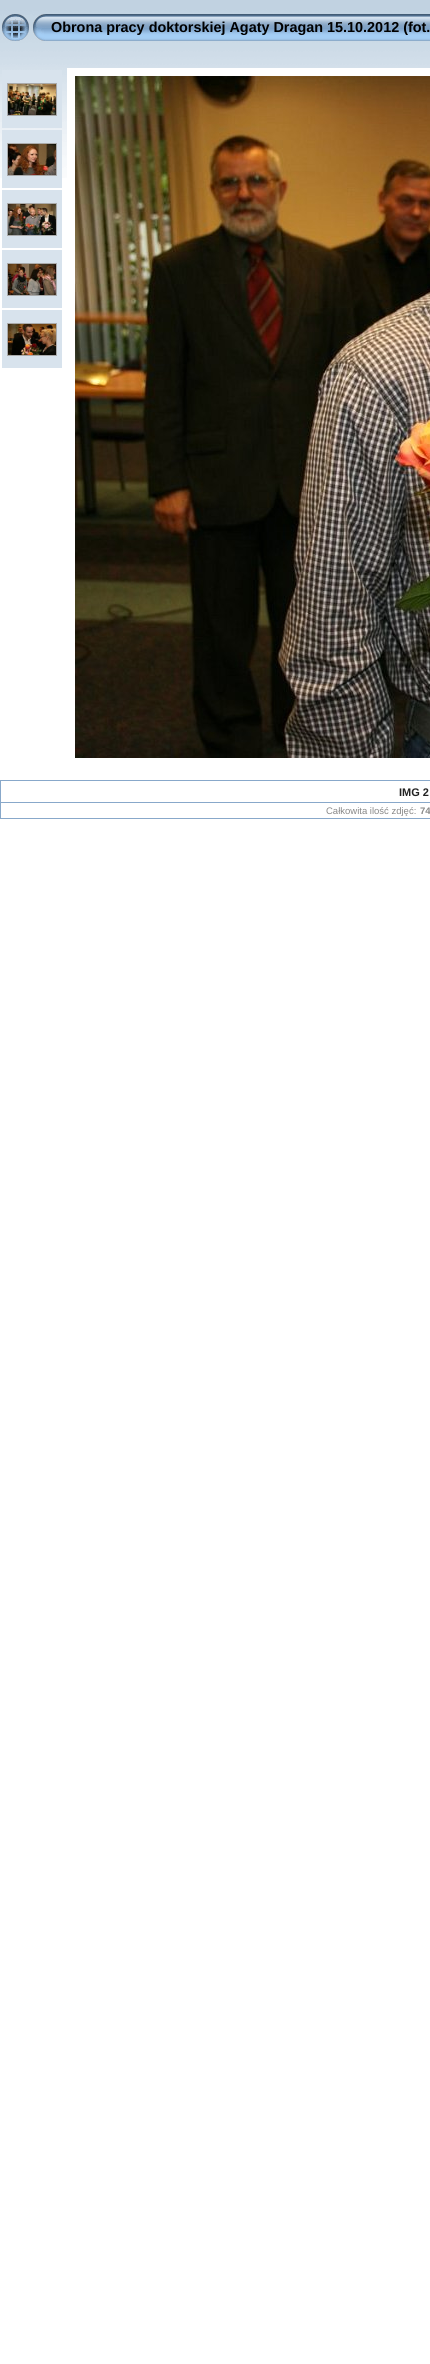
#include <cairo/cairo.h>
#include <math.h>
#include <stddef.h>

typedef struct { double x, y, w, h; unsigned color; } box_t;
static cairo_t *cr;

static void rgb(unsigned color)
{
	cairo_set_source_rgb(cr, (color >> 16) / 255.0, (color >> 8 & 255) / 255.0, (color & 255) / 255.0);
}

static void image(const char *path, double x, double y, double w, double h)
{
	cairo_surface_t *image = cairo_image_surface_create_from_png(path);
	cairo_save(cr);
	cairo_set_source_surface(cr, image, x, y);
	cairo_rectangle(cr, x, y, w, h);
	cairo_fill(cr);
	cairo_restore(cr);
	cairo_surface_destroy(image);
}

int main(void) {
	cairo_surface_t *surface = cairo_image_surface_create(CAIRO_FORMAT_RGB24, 430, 2364);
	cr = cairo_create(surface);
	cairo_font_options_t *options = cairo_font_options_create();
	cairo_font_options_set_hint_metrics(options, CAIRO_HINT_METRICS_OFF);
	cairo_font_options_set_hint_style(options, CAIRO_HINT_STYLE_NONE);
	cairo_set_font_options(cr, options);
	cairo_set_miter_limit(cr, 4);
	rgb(0xffffff);
	cairo_paint(cr);
	image("img/1.png", 0, 0, 430, 178);
	image("img/2.png", 2, 14, 27, 27);
	image("img/3.png", 33, 14, 18, 27);
	image("img/4.png", 51, 14, 379, 27);
	rgb(0xd8e3ed);
	cairo_rectangle(cr, 2, 70, 60, 58);
	cairo_fill(cr);
	cairo_rectangle(cr, 7.5, 83.5, 49, 32);
	rgb(0xaaaaaa);
	cairo_set_line_width(cr, 1);
	cairo_stroke(cr);
	image("img/5.png", 8, 84, 48, 31);
	rgb(0xd8e3ed);
	cairo_rectangle(cr, 2, 130, 60, 58);
	cairo_fill(cr);
	cairo_rectangle(cr, 7.5, 143.5, 49, 32);
	rgb(0xaaaaaa);
	cairo_stroke(cr);
	image("img/6.png", 8, 144, 48, 31);
	rgb(0xd8e3ed);
	cairo_rectangle(cr, 2, 190, 60, 58);
	cairo_fill(cr);
	cairo_rectangle(cr, 7.5, 203.5, 49, 32);
	rgb(0xaaaaaa);
	cairo_stroke(cr);
	image("img/7.png", 8, 204, 48, 31);
	rgb(0xd8e3ed);
	cairo_rectangle(cr, 2, 250, 60, 58);
	cairo_fill(cr);
	cairo_rectangle(cr, 7.5, 263.5, 49, 32);
	rgb(0xaaaaaa);
	cairo_stroke(cr);
	image("img/8.png", 8, 264, 48, 31);
	rgb(0xd8e3ed);
	cairo_rectangle(cr, 2, 310, 60, 58);
	cairo_fill(cr);
	cairo_rectangle(cr, 7.5, 323.5, 49, 32);
	rgb(0xaaaaaa);
	cairo_stroke(cr);
	image("img/9.png", 8, 324, 48, 31);
	cairo_rectangle(cr, 71, 72, 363, 690);
	rgb(0xffffff);
	cairo_set_line_width(cr, 8);
	cairo_stroke(cr);
	image("img/10.png", 75, 76, 355, 682);
	{
		static const box_t items[] = {
			{0, 780, 430, 1, 0x88a8ca},
			{0, 818, 430, 1, 0x88a8ca},
			{0, 780, 1, 39, 0x88a8ca},
			{0, 802, 430, 1, 0x88a8ca},
		};
		for (size_t i = 0; i < sizeof items / sizeof *items; i++) {
			rgb(items[i].color);
			cairo_rectangle(cr, items[i].x, items[i].y, items[i].w, items[i].h);
			cairo_fill(cr);
		}
	}
	cairo_select_font_face(cr, "Liberation Sans", CAIRO_FONT_SLANT_NORMAL, CAIRO_FONT_WEIGHT_BOLD);
	cairo_set_font_size(cr, 14.4);
	rgb(0x000000);
	cairo_move_to(cr, 51, 32);
	cairo_show_text(cr, "Obrona pracy doktorskiej Agaty Dragan 15.10.2012 (fot.");
	cairo_set_font_size(cr, 11);
	rgb(0x222222);
	cairo_move_to(cr, 399, 796);
	cairo_show_text(cr, "IMG 2");
	cairo_select_font_face(cr, "Liberation Sans", CAIRO_FONT_SLANT_NORMAL, CAIRO_FONT_WEIGHT_NORMAL);
	cairo_set_font_size(cr, 9.5);
	rgb(0x888888);
	cairo_move_to(cr, 326, 814);
	cairo_show_text(cr, "Całkowita ilość zdjęć:");
	cairo_select_font_face(cr, "Liberation Sans", CAIRO_FONT_SLANT_NORMAL, CAIRO_FONT_WEIGHT_BOLD);
	cairo_move_to(cr, 420, 814);
	cairo_show_text(cr, "74");
	cairo_surface_write_to_png(surface, "page.png");
	cairo_font_options_destroy(options);
	cairo_destroy(cr);
	cairo_surface_destroy(surface);
	return 0;
}
